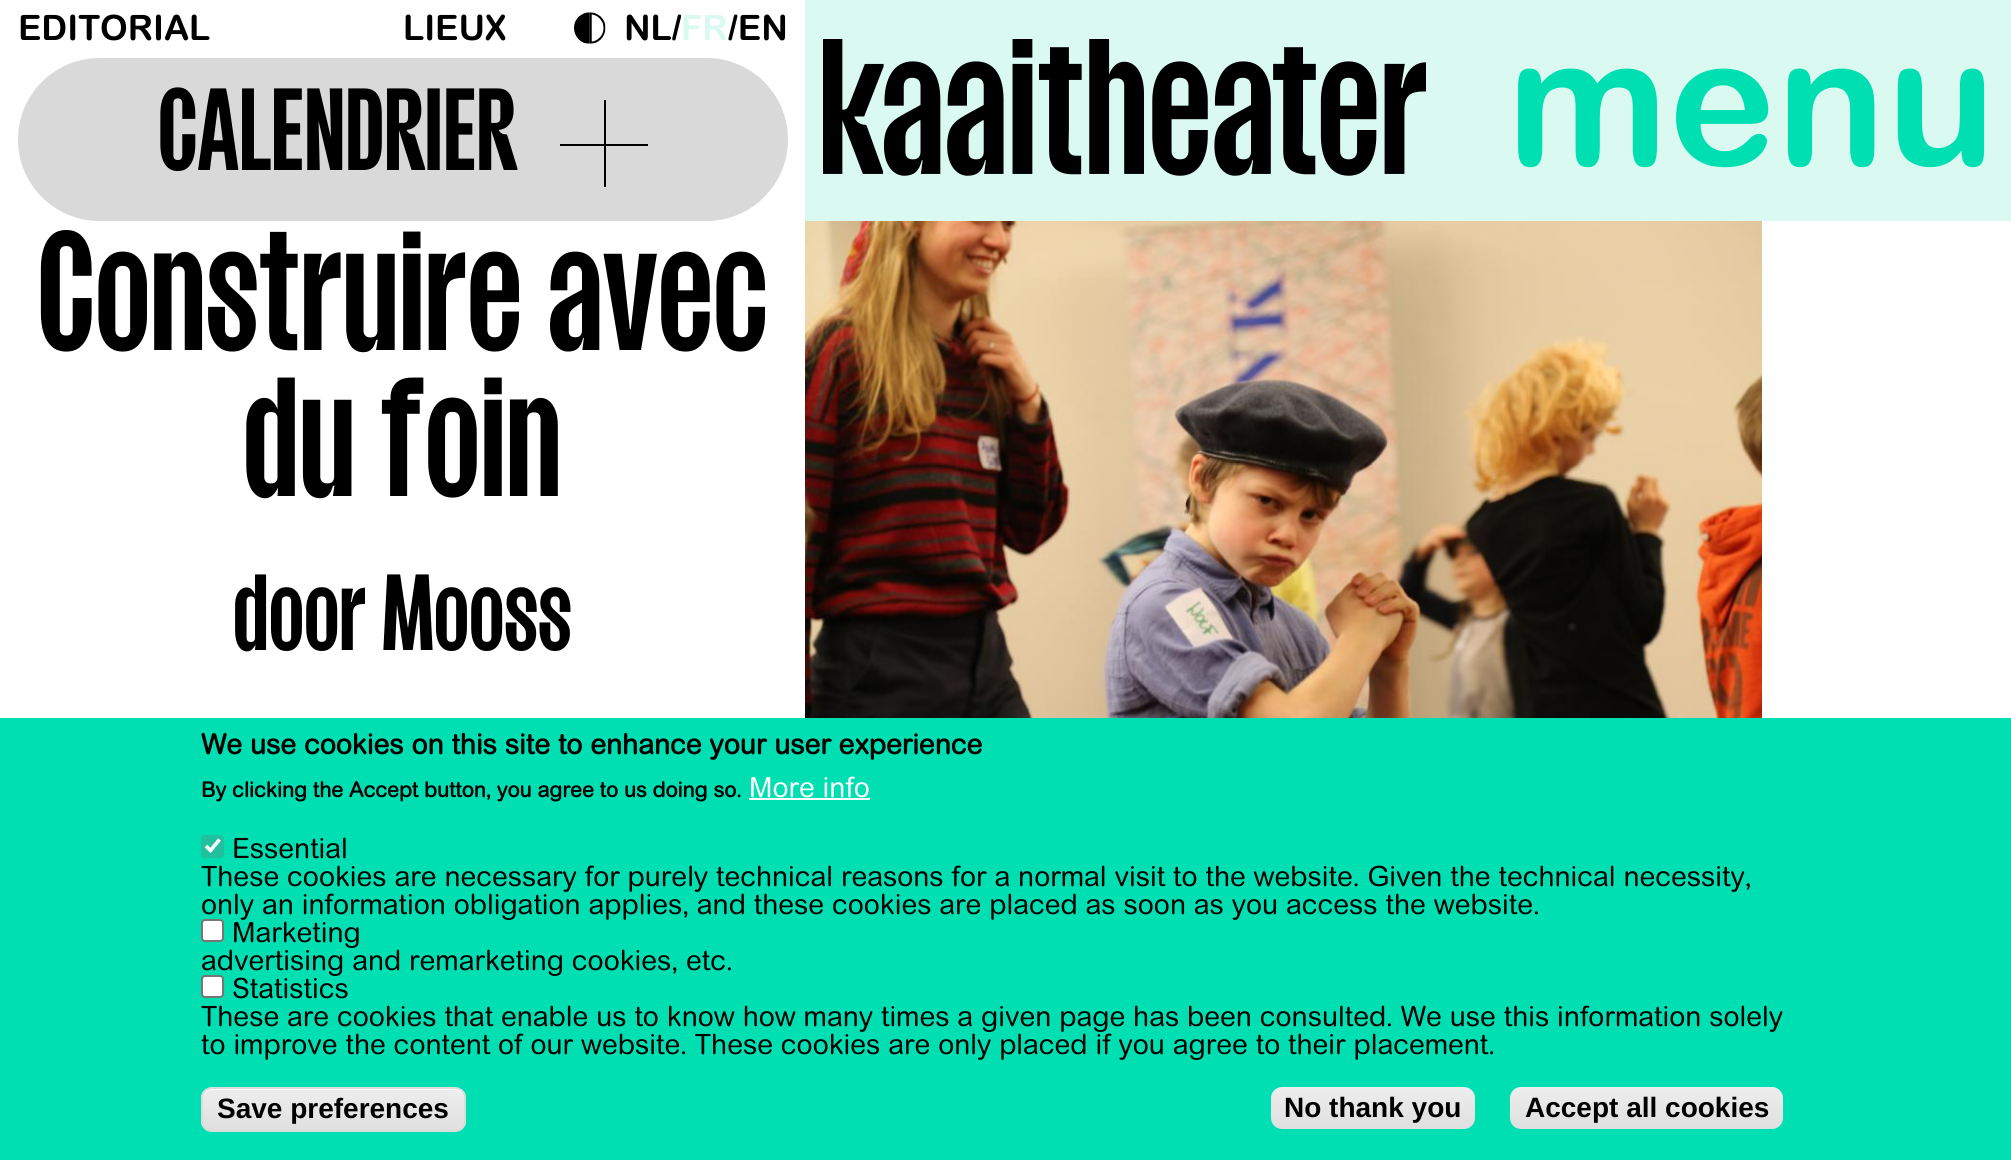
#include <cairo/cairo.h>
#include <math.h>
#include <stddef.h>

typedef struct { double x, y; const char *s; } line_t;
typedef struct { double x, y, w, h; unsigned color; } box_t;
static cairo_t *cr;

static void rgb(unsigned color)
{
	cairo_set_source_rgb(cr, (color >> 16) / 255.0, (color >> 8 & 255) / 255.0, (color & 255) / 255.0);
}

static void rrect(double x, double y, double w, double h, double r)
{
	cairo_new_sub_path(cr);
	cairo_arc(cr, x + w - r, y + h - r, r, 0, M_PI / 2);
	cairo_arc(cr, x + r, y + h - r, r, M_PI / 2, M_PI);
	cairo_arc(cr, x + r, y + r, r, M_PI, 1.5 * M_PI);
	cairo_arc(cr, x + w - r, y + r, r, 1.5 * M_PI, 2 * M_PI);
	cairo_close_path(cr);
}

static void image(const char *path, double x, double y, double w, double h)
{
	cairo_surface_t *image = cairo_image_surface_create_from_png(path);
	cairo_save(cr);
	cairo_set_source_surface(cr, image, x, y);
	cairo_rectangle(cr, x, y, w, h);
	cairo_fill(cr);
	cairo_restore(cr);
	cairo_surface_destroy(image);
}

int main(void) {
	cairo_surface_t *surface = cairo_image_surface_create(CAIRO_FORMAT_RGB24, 2011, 1160);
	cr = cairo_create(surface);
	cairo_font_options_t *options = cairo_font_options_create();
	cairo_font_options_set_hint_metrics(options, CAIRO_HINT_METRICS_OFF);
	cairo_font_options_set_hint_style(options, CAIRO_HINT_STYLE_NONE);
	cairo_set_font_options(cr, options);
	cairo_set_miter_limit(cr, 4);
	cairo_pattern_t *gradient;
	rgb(0xffffff);
	cairo_paint(cr);
	image("img/1.png", 574, 12, 32, 32);
	rgb(0xd9d9d9);
	rrect(18, 58, 770, 163, 81.5);
	cairo_fill(cr);
	{
		static const box_t items[] = {
			{560, 144, 88, 2, 0x000000},
			{604, 100, 2, 87, 0x000000},
			{805, 0, 1206, 221, 0xdaf9f0},
		};
		for (size_t i = 0; i < sizeof items / sizeof *items; i++) {
			rgb(items[i].color);
			cairo_rectangle(cr, items[i].x, items[i].y, items[i].w, items[i].h);
			cairo_fill(cr);
		}
	}
	image("img/2.png", 823, 39, 603, 137);
	image("img/3.png", 805, 221, 957, 497);
	rgb(0x00dfb1);
	cairo_rectangle(cr, 0, 718, 2011, 442);
	cairo_fill(cr);
	rgb(0xffffff);
	cairo_rectangle(cr, 749, 798, 121, 2);
	cairo_fill(cr);
	rgb(0x23c09f);
	rrect(201, 835, 23, 23, 4);
	cairo_fill(cr);
	cairo_new_path(cr);
	cairo_move_to(cr, 206, 846);
	cairo_line_to(cr, 210.5, 850.5);
	cairo_line_to(cr, 219.5, 839.5);
	rgb(0xffffff);
	cairo_set_line_width(cr, 3.6);
	cairo_stroke(cr);
	cairo_save(cr);
	rrect(201, 1087, 265, 45, 11);
	cairo_clip(cr);
	gradient = cairo_pattern_create_linear(333, 1089, 333, 1131);
	cairo_pattern_add_color_stop_rgba(gradient, 0.05, 0.929, 0.929, 0.929, 1);
	cairo_pattern_add_color_stop_rgba(gradient, 1, 0.875, 0.875, 0.875, 1);
	cairo_set_source(cr, gradient);
	cairo_pattern_destroy(gradient);
	cairo_rectangle(cr, 201, 1089, 265, 42);
	cairo_fill(cr);
	cairo_restore(cr);
	cairo_new_path(cr);
	cairo_move_to(cr, 212, 1090);
	cairo_line_to(cr, 455, 1090);
	cairo_curve_to(cr, 460, 1090, 464, 1094, 464, 1099);
	cairo_line_to(cr, 464, 1098);
	cairo_curve_to(cr, 464, 1093, 460, 1089, 455, 1089);
	cairo_line_to(cr, 212, 1089);
	cairo_curve_to(cr, 207, 1089, 203, 1093, 203, 1098);
	cairo_line_to(cr, 203, 1099);
	cairo_curve_to(cr, 203, 1094, 207, 1090, 212, 1090);
	cairo_close_path(cr);
	cairo_fill(cr);
	rrect(202, 1088, 263, 43, 10);
	rgb(0xdcdcdc);
	cairo_set_line_width(cr, 2);
	cairo_stroke(cr);
	gradient = cairo_pattern_create_linear(1373, 1087, 1373, 1129);
	cairo_pattern_add_color_stop_rgba(gradient, 0.05, 0.929, 0.929, 0.929, 1);
	cairo_pattern_add_color_stop_rgba(gradient, 1, 0.875, 0.875, 0.875, 1);
	cairo_set_source(cr, gradient);
	cairo_pattern_destroy(gradient);
	rrect(1271, 1087, 204, 42, 11);
	cairo_fill(cr);
	gradient = cairo_pattern_create_linear(1647, 1087, 1647, 1129);
	cairo_pattern_add_color_stop_rgba(gradient, 0.05, 0.929, 0.929, 0.929, 1);
	cairo_pattern_add_color_stop_rgba(gradient, 1, 0.875, 0.875, 0.875, 1);
	cairo_set_source(cr, gradient);
	cairo_pattern_destroy(gradient);
	rrect(1510, 1087, 273, 42, 11);
	cairo_fill(cr);
	cairo_select_font_face(cr, "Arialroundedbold", CAIRO_FONT_SLANT_NORMAL, CAIRO_FONT_WEIGHT_BOLD);
	cairo_set_font_size(cr, 35);
	rgb(0x000000);
	{
		static const line_t items[] = {
			{18, 40, "EDITORIAL"},
			{403, 40, "LIEUX"},
			{624, 40, "NL/"},
		};
		for (size_t i = 0; i < sizeof items / sizeof *items; i++) {
			cairo_move_to(cr, items[i].x, items[i].y);
			cairo_show_text(cr, items[i].s);
		}
	}
	rgb(0xdaf9f0);
	cairo_move_to(cr, 681, 40);
	cairo_show_text(cr, "FR");
	rgb(0x000000);
	cairo_move_to(cr, 728, 40);
	cairo_show_text(cr, "/EN");
	cairo_select_font_face(cr, "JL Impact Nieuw", CAIRO_FONT_SLANT_NORMAL, CAIRO_FONT_WEIGHT_NORMAL);
	cairo_set_font_size(cr, 108.5);
	cairo_move_to(cr, 157, 170);
	cairo_show_text(cr, "CALENDRIER");
	cairo_select_font_face(cr, "Arialroundedbold", CAIRO_FONT_SLANT_NORMAL, CAIRO_FONT_WEIGHT_BOLD);
	cairo_set_font_size(cr, 182);
	rgb(0x00dfb1);
	cairo_move_to(cr, 1507, 165);
	cairo_show_text(cr, "menu");
	cairo_select_font_face(cr, "JL Impact Nieuw", CAIRO_FONT_SLANT_NORMAL, CAIRO_FONT_WEIGHT_NORMAL);
	cairo_set_font_size(cr, 157.5);
	rgb(0x000000);
	cairo_move_to(cr, 36, 350);
	cairo_show_text(cr, "Construire avec");
	cairo_move_to(cr, 243, 496);
	cairo_show_text(cr, "du foin");
	cairo_set_font_size(cr, 100.5);
	cairo_move_to(cr, 233, 650);
	cairo_show_text(cr, "door Mooss");
	cairo_select_font_face(cr, "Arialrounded", CAIRO_FONT_SLANT_NORMAL, CAIRO_FONT_WEIGHT_BOLD);
	cairo_set_font_size(cr, 28);
	cairo_move_to(cr, 201, 754);
	cairo_show_text(cr, "We use cookies on this site to enhance your user experience");
	cairo_set_font_size(cr, 21);
	cairo_move_to(cr, 201, 797);
	cairo_show_text(cr, "By clicking the Accept button, you agree to us doing so.");
	cairo_select_font_face(cr, "Arialrounded", CAIRO_FONT_SLANT_NORMAL, CAIRO_FONT_WEIGHT_NORMAL);
	cairo_set_font_size(cr, 28);
	rgb(0xffffff);
	cairo_move_to(cr, 749, 797);
	cairo_show_text(cr, "More info");
	rgb(0x000000);
	{
		static const line_t items[] = {
			{232, 858, "Essential"},
			{201, 886, "These cookies are necessary for purely technical reasons for a normal visit to the website. Given the technical necessity,"},
			{201, 914, "only an information obligation applies, and these cookies are placed as soon as you access the website."},
		};
		for (size_t i = 0; i < sizeof items / sizeof *items; i++) {
			cairo_move_to(cr, items[i].x, items[i].y);
			cairo_show_text(cr, items[i].s);
		}
	}
	rgb(0xffffff);
	rrect(202, 920, 21, 21, 3);
	cairo_fill_preserve(cr);
	rgb(0x767676);
	cairo_stroke(cr);
	rgb(0x000000);
	cairo_move_to(cr, 232, 942);
	cairo_show_text(cr, "Marketing");
	cairo_move_to(cr, 201, 970);
	cairo_show_text(cr, "advertising and remarketing cookies, etc.");
	rgb(0xffffff);
	rrect(202, 976, 21, 21, 3);
	cairo_fill_preserve(cr);
	rgb(0x767676);
	cairo_stroke(cr);
	rgb(0x000000);
	{
		static const line_t items[] = {
			{232, 998, "Statistics"},
			{201, 1026, "These are cookies that enable us to know how many times a given page has been consulted. We use this information solely"},
			{201, 1054, "to improve the content of our website. These cookies are only placed if you agree to their placement."},
		};
		for (size_t i = 0; i < sizeof items / sizeof *items; i++) {
			cairo_move_to(cr, items[i].x, items[i].y);
			cairo_show_text(cr, items[i].s);
		}
	}
	cairo_select_font_face(cr, "Liberation Sans", CAIRO_FONT_SLANT_NORMAL, CAIRO_FONT_WEIGHT_BOLD);
	{
		static const line_t items[] = {
			{217, 1118, "Save preferences"},
			{1284, 1117, "No thank you"},
			{1525, 1117, "Accept all cookies"},
		};
		for (size_t i = 0; i < sizeof items / sizeof *items; i++) {
			cairo_move_to(cr, items[i].x, items[i].y);
			cairo_show_text(cr, items[i].s);
		}
	}
	cairo_surface_write_to_png(surface, "page.png");
	cairo_font_options_destroy(options);
	cairo_destroy(cr);
	cairo_surface_destroy(surface);
	return 0;
}
